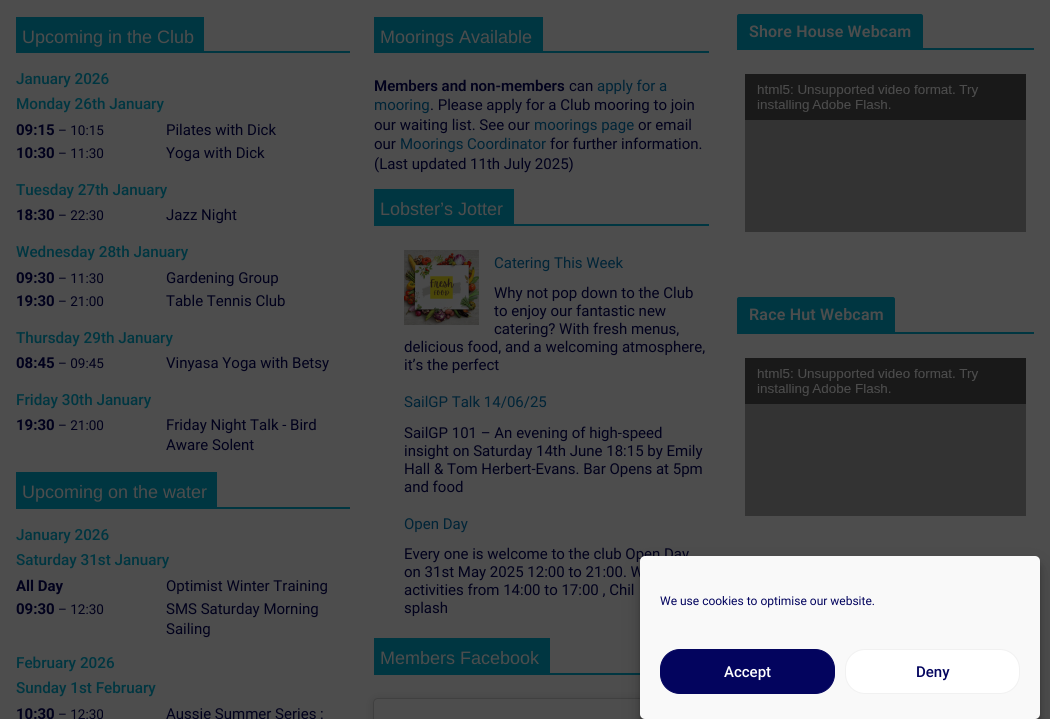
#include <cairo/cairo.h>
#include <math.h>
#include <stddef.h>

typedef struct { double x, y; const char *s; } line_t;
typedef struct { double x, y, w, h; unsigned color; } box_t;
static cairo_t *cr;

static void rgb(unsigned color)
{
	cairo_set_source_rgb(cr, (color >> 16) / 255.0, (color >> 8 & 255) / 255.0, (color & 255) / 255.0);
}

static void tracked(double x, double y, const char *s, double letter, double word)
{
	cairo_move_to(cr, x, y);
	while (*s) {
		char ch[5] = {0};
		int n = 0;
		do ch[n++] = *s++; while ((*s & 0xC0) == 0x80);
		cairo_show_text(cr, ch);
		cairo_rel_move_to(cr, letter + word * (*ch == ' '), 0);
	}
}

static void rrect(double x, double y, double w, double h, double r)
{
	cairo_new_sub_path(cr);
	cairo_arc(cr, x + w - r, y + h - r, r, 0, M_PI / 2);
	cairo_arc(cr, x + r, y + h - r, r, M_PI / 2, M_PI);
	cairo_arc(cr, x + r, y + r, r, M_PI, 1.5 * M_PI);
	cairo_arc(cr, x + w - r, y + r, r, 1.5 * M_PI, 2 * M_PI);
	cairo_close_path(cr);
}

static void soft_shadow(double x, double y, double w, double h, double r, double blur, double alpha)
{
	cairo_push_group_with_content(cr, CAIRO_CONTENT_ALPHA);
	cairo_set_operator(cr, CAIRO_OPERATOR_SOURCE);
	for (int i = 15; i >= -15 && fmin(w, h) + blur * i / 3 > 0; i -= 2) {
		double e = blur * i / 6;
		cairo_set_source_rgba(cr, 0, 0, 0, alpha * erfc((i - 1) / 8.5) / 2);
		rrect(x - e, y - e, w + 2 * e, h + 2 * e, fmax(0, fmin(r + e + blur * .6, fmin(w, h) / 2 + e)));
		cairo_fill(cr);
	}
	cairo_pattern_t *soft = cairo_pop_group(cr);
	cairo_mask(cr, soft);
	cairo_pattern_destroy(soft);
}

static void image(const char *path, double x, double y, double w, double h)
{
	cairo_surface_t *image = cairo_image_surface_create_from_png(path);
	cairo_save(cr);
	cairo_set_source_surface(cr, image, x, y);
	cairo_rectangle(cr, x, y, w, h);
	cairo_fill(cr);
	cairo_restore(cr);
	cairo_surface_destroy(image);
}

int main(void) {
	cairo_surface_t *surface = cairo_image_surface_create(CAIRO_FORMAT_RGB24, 1050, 719);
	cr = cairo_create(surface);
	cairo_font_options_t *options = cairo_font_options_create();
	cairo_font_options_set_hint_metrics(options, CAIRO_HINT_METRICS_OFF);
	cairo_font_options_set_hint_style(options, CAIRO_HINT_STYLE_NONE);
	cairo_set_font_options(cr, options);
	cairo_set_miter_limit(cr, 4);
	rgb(0x4d4d4d);
	cairo_paint(cr);
	{
		static const box_t items[] = {
			{204, 51, 146, 2, 0x003641},
			{16, 17, 188, 36, 0x003641},
			{16, 507, 334, 2, 0x003641},
			{16, 472, 201, 35, 0x003641},
			{543, 51, 166, 2, 0x003641},
			{374, 17, 169, 36, 0x003641},
			{374, 224, 335, 2, 0x003641},
			{374, 189, 140, 35, 0x003641},
		};
		for (size_t i = 0; i < sizeof items / sizeof *items; i++) {
			rgb(items[i].color);
			cairo_rectangle(cr, items[i].x, items[i].y, items[i].w, items[i].h);
			cairo_fill(cr);
		}
	}
	image("img/1.png", 404, 250, 75, 75);
	cairo_rectangle(cr, 374, 673, 266, 2);
	cairo_fill(cr);
	cairo_rectangle(cr, 374, 638, 176, 35);
	cairo_fill(cr);
	rgb(0x000000);
	soft_shadow(374, 700, 335, 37, 3, 5, 0.15);
	soft_shadow(374, 699, 335, 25, 3, 0.5, 0.5);
	rgb(0x4d4d4d);
	rrect(374, 699, 335, 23, 3);
	cairo_fill(cr);
	rgb(0x003641);
	cairo_rectangle(cr, 737, 48, 297, 2);
	cairo_fill(cr);
	cairo_new_path(cr);
	cairo_move_to(cr, 739, 14);
	cairo_line_to(cr, 921, 14);
	cairo_curve_to(cr, 922, 14, 923, 15, 923, 16);
	cairo_line_to(cr, 923, 48);
	cairo_line_to(cr, 737, 48);
	cairo_line_to(cr, 737, 16);
	cairo_curve_to(cr, 737, 15, 738, 14, 739, 14);
	cairo_close_path(cr);
	cairo_fill(cr);
	image("img/2.png", 745, 74, 281, 158);
	cairo_rectangle(cr, 737, 332, 297, 2);
	cairo_fill(cr);
	cairo_new_path(cr);
	cairo_move_to(cr, 739, 297);
	cairo_line_to(cr, 893, 297);
	cairo_curve_to(cr, 894, 297, 895, 298, 895, 299);
	cairo_line_to(cr, 895, 332);
	cairo_line_to(cr, 737, 332);
	cairo_line_to(cr, 737, 299);
	cairo_curve_to(cr, 737, 298, 738, 297, 739, 297);
	cairo_close_path(cr);
	cairo_fill(cr);
	image("img/2.png", 745, 358, 281, 158);
	rgb(0x000000);
	soft_shadow(640, 562, 400, 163, 5, 3, 0.23);
	soft_shadow(640, 566, 400, 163, 5, 10, 0.19);
	cairo_select_font_face(cr, "Liberation Sans", CAIRO_FONT_SLANT_NORMAL, CAIRO_FONT_WEIGHT_NORMAL);
	cairo_set_font_size(cr, 18);
	rgb(0x4d4d4d);
	cairo_move_to(cr, 22, 43);
	cairo_show_text(cr, "Upcoming in the Club");
	cairo_select_font_face(cr, "Roboto Medium", CAIRO_FONT_SLANT_NORMAL, CAIRO_FONT_WEIGHT_NORMAL);
	cairo_set_font_size(cr, 15.25);
	rgb(0x003641);
	cairo_move_to(cr, 16, 84);
	cairo_show_text(cr, "January 2026");
	cairo_move_to(cr, 16, 109);
	cairo_show_text(cr, "Monday 26th January");
	cairo_select_font_face(cr, "Roboto", CAIRO_FONT_SLANT_NORMAL, CAIRO_FONT_WEIGHT_BOLD);
	cairo_set_font_size(cr, 15);
	rgb(0x01011c);
	cairo_move_to(cr, 16, 135);
	cairo_show_text(cr, "09:15");
	cairo_select_font_face(cr, "Roboto", CAIRO_FONT_SLANT_NORMAL, CAIRO_FONT_WEIGHT_NORMAL);
	cairo_set_font_size(cr, 13.5);
	cairo_move_to(cr, 58, 135);
	cairo_show_text(cr, "– 10:15");
	cairo_set_font_size(cr, 15);
	cairo_move_to(cr, 166, 135);
	cairo_show_text(cr, "Pilates with Dick");
	cairo_select_font_face(cr, "Roboto", CAIRO_FONT_SLANT_NORMAL, CAIRO_FONT_WEIGHT_BOLD);
	cairo_move_to(cr, 16, 158);
	cairo_show_text(cr, "10:30");
	cairo_select_font_face(cr, "Roboto", CAIRO_FONT_SLANT_NORMAL, CAIRO_FONT_WEIGHT_NORMAL);
	cairo_set_font_size(cr, 13.5);
	cairo_move_to(cr, 58, 158);
	cairo_show_text(cr, "– 11:30");
	cairo_set_font_size(cr, 15);
	cairo_move_to(cr, 166, 158);
	cairo_show_text(cr, "Yoga with Dick");
	cairo_select_font_face(cr, "Roboto Medium", CAIRO_FONT_SLANT_NORMAL, CAIRO_FONT_WEIGHT_NORMAL);
	cairo_set_font_size(cr, 15.25);
	rgb(0x003641);
	cairo_move_to(cr, 16, 195);
	cairo_show_text(cr, "Tuesday 27th January");
	cairo_select_font_face(cr, "Roboto", CAIRO_FONT_SLANT_NORMAL, CAIRO_FONT_WEIGHT_BOLD);
	cairo_set_font_size(cr, 15);
	rgb(0x01011c);
	cairo_move_to(cr, 16, 220);
	cairo_show_text(cr, "18:30");
	cairo_select_font_face(cr, "Roboto", CAIRO_FONT_SLANT_NORMAL, CAIRO_FONT_WEIGHT_NORMAL);
	cairo_set_font_size(cr, 13.5);
	cairo_move_to(cr, 58, 220);
	cairo_show_text(cr, "– 22:30");
	cairo_set_font_size(cr, 15);
	cairo_move_to(cr, 166, 220);
	cairo_show_text(cr, "Jazz Night");
	cairo_select_font_face(cr, "Roboto Medium", CAIRO_FONT_SLANT_NORMAL, CAIRO_FONT_WEIGHT_NORMAL);
	cairo_set_font_size(cr, 15.25);
	rgb(0x003641);
	cairo_move_to(cr, 16, 257);
	cairo_show_text(cr, "Wednesday 28th January");
	cairo_select_font_face(cr, "Roboto", CAIRO_FONT_SLANT_NORMAL, CAIRO_FONT_WEIGHT_BOLD);
	cairo_set_font_size(cr, 15);
	rgb(0x01011c);
	cairo_move_to(cr, 16, 283);
	cairo_show_text(cr, "09:30");
	cairo_select_font_face(cr, "Roboto", CAIRO_FONT_SLANT_NORMAL, CAIRO_FONT_WEIGHT_NORMAL);
	cairo_set_font_size(cr, 13.5);
	cairo_move_to(cr, 58, 283);
	cairo_show_text(cr, "– 11:30");
	cairo_set_font_size(cr, 15);
	cairo_move_to(cr, 166, 283);
	cairo_show_text(cr, "Gardening Group");
	cairo_select_font_face(cr, "Roboto", CAIRO_FONT_SLANT_NORMAL, CAIRO_FONT_WEIGHT_BOLD);
	cairo_move_to(cr, 16, 306);
	cairo_show_text(cr, "19:30");
	cairo_select_font_face(cr, "Roboto", CAIRO_FONT_SLANT_NORMAL, CAIRO_FONT_WEIGHT_NORMAL);
	cairo_set_font_size(cr, 13.5);
	cairo_move_to(cr, 58, 306);
	cairo_show_text(cr, "– 21:00");
	cairo_set_font_size(cr, 15);
	cairo_move_to(cr, 166, 306);
	cairo_show_text(cr, "Table Tennis Club");
	cairo_select_font_face(cr, "Roboto Medium", CAIRO_FONT_SLANT_NORMAL, CAIRO_FONT_WEIGHT_NORMAL);
	cairo_set_font_size(cr, 15.25);
	rgb(0x003641);
	cairo_move_to(cr, 16, 343);
	cairo_show_text(cr, "Thursday 29th January");
	cairo_select_font_face(cr, "Roboto", CAIRO_FONT_SLANT_NORMAL, CAIRO_FONT_WEIGHT_BOLD);
	cairo_set_font_size(cr, 15);
	rgb(0x01011c);
	cairo_move_to(cr, 16, 368);
	cairo_show_text(cr, "08:45");
	cairo_select_font_face(cr, "Roboto", CAIRO_FONT_SLANT_NORMAL, CAIRO_FONT_WEIGHT_NORMAL);
	cairo_set_font_size(cr, 13.5);
	cairo_move_to(cr, 58, 368);
	cairo_show_text(cr, "– 09:45");
	cairo_set_font_size(cr, 15);
	cairo_move_to(cr, 166, 368);
	cairo_show_text(cr, "Vinyasa Yoga with Betsy");
	cairo_select_font_face(cr, "Roboto Medium", CAIRO_FONT_SLANT_NORMAL, CAIRO_FONT_WEIGHT_NORMAL);
	cairo_set_font_size(cr, 15.25);
	rgb(0x003641);
	cairo_move_to(cr, 16, 405);
	cairo_show_text(cr, "Friday 30th January");
	cairo_select_font_face(cr, "Roboto", CAIRO_FONT_SLANT_NORMAL, CAIRO_FONT_WEIGHT_BOLD);
	cairo_set_font_size(cr, 15);
	rgb(0x01011c);
	cairo_move_to(cr, 16, 430);
	cairo_show_text(cr, "19:30");
	cairo_select_font_face(cr, "Roboto", CAIRO_FONT_SLANT_NORMAL, CAIRO_FONT_WEIGHT_NORMAL);
	cairo_set_font_size(cr, 13.5);
	cairo_move_to(cr, 58, 430);
	cairo_show_text(cr, "– 21:00");
	cairo_set_font_size(cr, 15);
	cairo_move_to(cr, 166, 430);
	cairo_show_text(cr, "Friday Night Talk - Bird");
	cairo_move_to(cr, 166, 450);
	cairo_show_text(cr, "Aware Solent");
	cairo_select_font_face(cr, "Liberation Sans", CAIRO_FONT_SLANT_NORMAL, CAIRO_FONT_WEIGHT_NORMAL);
	cairo_set_font_size(cr, 18);
	rgb(0x4d4d4d);
	cairo_move_to(cr, 22, 498);
	cairo_show_text(cr, "Upcoming on the water");
	cairo_select_font_face(cr, "Roboto Medium", CAIRO_FONT_SLANT_NORMAL, CAIRO_FONT_WEIGHT_NORMAL);
	cairo_set_font_size(cr, 15.25);
	rgb(0x003641);
	cairo_move_to(cr, 16, 540);
	cairo_show_text(cr, "January 2026");
	cairo_move_to(cr, 16, 565);
	cairo_show_text(cr, "Saturday 31st January");
	cairo_select_font_face(cr, "Roboto", CAIRO_FONT_SLANT_NORMAL, CAIRO_FONT_WEIGHT_BOLD);
	cairo_set_font_size(cr, 15);
	rgb(0x01011c);
	cairo_move_to(cr, 16, 591);
	cairo_show_text(cr, "All Day");
	cairo_select_font_face(cr, "Roboto", CAIRO_FONT_SLANT_NORMAL, CAIRO_FONT_WEIGHT_NORMAL);
	cairo_move_to(cr, 166, 591);
	cairo_show_text(cr, "Optimist Winter Training");
	cairo_select_font_face(cr, "Roboto", CAIRO_FONT_SLANT_NORMAL, CAIRO_FONT_WEIGHT_BOLD);
	cairo_move_to(cr, 16, 614);
	cairo_show_text(cr, "09:30");
	cairo_select_font_face(cr, "Roboto", CAIRO_FONT_SLANT_NORMAL, CAIRO_FONT_WEIGHT_NORMAL);
	cairo_set_font_size(cr, 13.5);
	cairo_move_to(cr, 58, 614);
	cairo_show_text(cr, "– 12:30");
	cairo_set_font_size(cr, 15);
	cairo_move_to(cr, 166, 614);
	cairo_show_text(cr, "SMS Saturday Morning");
	cairo_move_to(cr, 166, 634);
	cairo_show_text(cr, "Sailing");
	cairo_select_font_face(cr, "Roboto Medium", CAIRO_FONT_SLANT_NORMAL, CAIRO_FONT_WEIGHT_NORMAL);
	cairo_set_font_size(cr, 15.25);
	rgb(0x003641);
	cairo_move_to(cr, 16, 668);
	cairo_show_text(cr, "February 2026");
	cairo_move_to(cr, 16, 693);
	cairo_show_text(cr, "Sunday 1st February");
	cairo_select_font_face(cr, "Roboto", CAIRO_FONT_SLANT_NORMAL, CAIRO_FONT_WEIGHT_BOLD);
	cairo_set_font_size(cr, 15);
	rgb(0x01011c);
	cairo_move_to(cr, 16, 719);
	cairo_show_text(cr, "10:30");
	cairo_select_font_face(cr, "Roboto", CAIRO_FONT_SLANT_NORMAL, CAIRO_FONT_WEIGHT_NORMAL);
	cairo_set_font_size(cr, 13.5);
	cairo_move_to(cr, 58, 719);
	cairo_show_text(cr, "– 12:30");
	cairo_set_font_size(cr, 15);
	cairo_move_to(cr, 166, 719);
	cairo_show_text(cr, "Aussie Summer Series :");
	cairo_select_font_face(cr, "Liberation Sans", CAIRO_FONT_SLANT_NORMAL, CAIRO_FONT_WEIGHT_NORMAL);
	cairo_set_font_size(cr, 18);
	rgb(0x4d4d4d);
	cairo_move_to(cr, 380, 43);
	cairo_show_text(cr, "Moorings Available");
	cairo_select_font_face(cr, "Roboto SemiBold", CAIRO_FONT_SLANT_NORMAL, CAIRO_FONT_WEIGHT_NORMAL);
	cairo_set_font_size(cr, 15);
	rgb(0x01011c);
	cairo_move_to(cr, 374, 91);
	cairo_show_text(cr, "Members and non-members");
	cairo_select_font_face(cr, "Roboto", CAIRO_FONT_SLANT_NORMAL, CAIRO_FONT_WEIGHT_NORMAL);
	cairo_move_to(cr, 569, 91);
	cairo_show_text(cr, "can");
	rgb(0x002437);
	cairo_move_to(cr, 597, 91);
	cairo_show_text(cr, "apply for a");
	cairo_move_to(cr, 374, 110);
	cairo_show_text(cr, "mooring");
	rgb(0x01011c);
	cairo_move_to(cr, 430, 110);
	cairo_show_text(cr, ". Please apply for a Club mooring to join");
	cairo_move_to(cr, 374, 130);
	cairo_show_text(cr, "our waiting list. See our");
	rgb(0x002437);
	cairo_move_to(cr, 534, 130);
	cairo_show_text(cr, "moorings page");
	rgb(0x01011c);
	cairo_move_to(cr, 638, 130);
	cairo_show_text(cr, "or email");
	cairo_move_to(cr, 374, 149);
	cairo_show_text(cr, "our");
	rgb(0x002437);
	cairo_move_to(cr, 400, 149);
	cairo_show_text(cr, "Moorings Coordinator");
	rgb(0x01011c);
	cairo_move_to(cr, 550, 149);
	cairo_show_text(cr, "for further information.");
	cairo_move_to(cr, 374, 169);
	cairo_show_text(cr, "(Last updated 11th July 2025)");
	cairo_select_font_face(cr, "Liberation Sans", CAIRO_FONT_SLANT_NORMAL, CAIRO_FONT_WEIGHT_NORMAL);
	cairo_set_font_size(cr, 18);
	rgb(0x4d4d4d);
	cairo_move_to(cr, 380, 215);
	cairo_show_text(cr, "Lobster’s Jotter");
	cairo_select_font_face(cr, "Roboto", CAIRO_FONT_SLANT_NORMAL, CAIRO_FONT_WEIGHT_NORMAL);
	cairo_set_font_size(cr, 15);
	rgb(0x002437);
	cairo_move_to(cr, 494, 268);
	cairo_show_text(cr, "Catering This Week");
	rgb(0x01011c);
	{
		static const line_t items[] = {
			{494, 298, "Why not pop down to the Club"},
			{494, 316, "to enjoy our fantastic new"},
			{494, 334, "catering? With fresh menus,"},
			{404, 352, "delicious food, and a welcoming atmosphere,"},
			{404, 370, "it’s the perfect"},
		};
		for (size_t i = 0; i < sizeof items / sizeof *items; i++) {
			cairo_move_to(cr, items[i].x, items[i].y);
			cairo_show_text(cr, items[i].s);
		}
	}
	rgb(0x002437);
	cairo_move_to(cr, 404, 407);
	cairo_show_text(cr, "SailGP Talk 14/06/25");
	rgb(0x01011c);
	{
		static const line_t items[] = {
			{404, 438, "SailGP 101 – An evening of high-speed"},
			{404, 456, "insight on Saturday 14th June 18:15 by Emily"},
			{404, 474, "Hall & Tom Herbert-Evans. Bar Opens at 5pm"},
			{404, 492, "and food"},
		};
		for (size_t i = 0; i < sizeof items / sizeof *items; i++) {
			cairo_move_to(cr, items[i].x, items[i].y);
			cairo_show_text(cr, items[i].s);
		}
	}
	rgb(0x002437);
	cairo_move_to(cr, 404, 529);
	cairo_show_text(cr, "Open Day");
	rgb(0x01011c);
	{
		static const line_t items[] = {
			{404, 559, "Every one is welcome to the club Open Day"},
			{404, 577, "on 31st May 2025 12:00 to 21:00. W"},
			{404, 595, "activities from 14:00 to 17:00 , Chil"},
			{404, 613, "splash"},
		};
		for (size_t i = 0; i < sizeof items / sizeof *items; i++) {
			cairo_move_to(cr, items[i].x, items[i].y);
			cairo_show_text(cr, items[i].s);
		}
	}
	cairo_select_font_face(cr, "Liberation Sans", CAIRO_FONT_SLANT_NORMAL, CAIRO_FONT_WEIGHT_NORMAL);
	cairo_set_font_size(cr, 18);
	rgb(0x4d4d4d);
	cairo_move_to(cr, 380, 664);
	cairo_show_text(cr, "Members Facebook");
	cairo_select_font_face(cr, "Roboto SemiBold", CAIRO_FONT_SLANT_NORMAL, CAIRO_FONT_WEIGHT_NORMAL);
	cairo_set_font_size(cr, 16);
	tracked(749, 37, "Shore House Webcam", 0.2, 0);
	tracked(749, 320, "Race Hut Webcam", 0.2, 0);
	rgb(0xf9f9f9);
	rrect(640, 556, 400, 163, 5);
	cairo_fill(cr);
	cairo_select_font_face(cr, "Roboto", CAIRO_FONT_SLANT_NORMAL, CAIRO_FONT_WEIGHT_NORMAL);
	cairo_set_font_size(cr, 12);
	rgb(0x03045e);
	cairo_move_to(cr, 660, 605);
	cairo_show_text(cr, "We use cookies to optimise our website.");
	rrect(660.5, 649.5, 174, 44, 19.5);
	cairo_fill_preserve(cr);
	cairo_set_line_width(cr, 1);
	cairo_stroke(cr);
	cairo_select_font_face(cr, "Roboto Medium", CAIRO_FONT_SLANT_NORMAL, CAIRO_FONT_WEIGHT_NORMAL);
	cairo_set_font_size(cr, 15);
	rgb(0xffffff);
	cairo_move_to(cr, 724, 677);
	cairo_show_text(cr, "Accept");
	rrect(845.5, 649.5, 174, 44, 19.5);
	cairo_fill_preserve(cr);
	rgb(0xf1f1f1);
	cairo_stroke(cr);
	rgb(0x03045e);
	cairo_move_to(cr, 916, 677);
	cairo_show_text(cr, "Deny");
	cairo_surface_write_to_png(surface, "page.png");
	cairo_font_options_destroy(options);
	cairo_destroy(cr);
	cairo_surface_destroy(surface);
	return 0;
}
